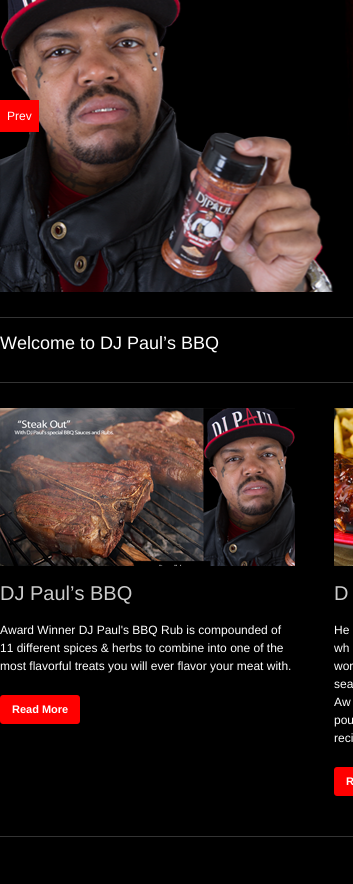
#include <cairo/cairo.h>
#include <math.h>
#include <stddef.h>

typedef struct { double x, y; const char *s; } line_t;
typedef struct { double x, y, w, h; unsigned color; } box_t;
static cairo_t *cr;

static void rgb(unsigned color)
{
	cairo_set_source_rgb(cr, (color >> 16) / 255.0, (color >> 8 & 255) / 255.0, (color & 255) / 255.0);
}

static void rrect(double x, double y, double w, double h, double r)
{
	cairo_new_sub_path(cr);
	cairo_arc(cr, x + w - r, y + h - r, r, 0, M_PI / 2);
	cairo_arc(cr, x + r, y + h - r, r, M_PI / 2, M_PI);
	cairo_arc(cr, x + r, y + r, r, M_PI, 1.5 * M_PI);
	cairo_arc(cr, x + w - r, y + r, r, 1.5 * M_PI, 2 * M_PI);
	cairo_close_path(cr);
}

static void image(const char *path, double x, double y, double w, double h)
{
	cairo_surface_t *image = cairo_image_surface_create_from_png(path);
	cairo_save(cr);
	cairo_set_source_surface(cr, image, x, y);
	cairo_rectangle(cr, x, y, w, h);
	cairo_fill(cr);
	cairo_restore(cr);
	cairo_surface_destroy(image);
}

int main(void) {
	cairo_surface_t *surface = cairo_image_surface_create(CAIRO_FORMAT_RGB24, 353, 884);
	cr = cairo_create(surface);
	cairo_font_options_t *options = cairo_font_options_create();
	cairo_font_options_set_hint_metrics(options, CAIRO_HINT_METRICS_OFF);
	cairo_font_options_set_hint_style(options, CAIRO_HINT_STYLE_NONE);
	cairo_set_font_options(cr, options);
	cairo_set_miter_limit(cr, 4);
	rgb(0x000000);
	cairo_paint(cr);
	image("img/1.png", 0, 0, 353, 292);
	{
		static const box_t items[] = {
			{0, 100, 39, 32, 0xff0000},
			{0, 317, 353, 1, 0x333333},
			{0, 382, 353, 1, 0x333333},
		};
		for (size_t i = 0; i < sizeof items / sizeof *items; i++) {
			rgb(items[i].color);
			cairo_rectangle(cr, items[i].x, items[i].y, items[i].w, items[i].h);
			cairo_fill(cr);
		}
	}
	image("img/2.png", 0, 408, 295, 158);
	rgb(0xff0000);
	rrect(0, 695, 80, 29, 3);
	cairo_fill(cr);
	image("img/3.png", 334, 408, 19, 158);
	rrect(334, 767, 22, 29, 3);
	cairo_fill(cr);
	rgb(0x333333);
	cairo_rectangle(cr, 0, 836, 353, 1);
	cairo_fill(cr);
	cairo_select_font_face(cr, "Liberation Sans", CAIRO_FONT_SLANT_NORMAL, CAIRO_FONT_WEIGHT_NORMAL);
	cairo_set_font_size(cr, 12);
	rgb(0xffffff);
	cairo_move_to(cr, 7, 120);
	cairo_show_text(cr, "Prev");
	cairo_set_font_size(cr, 18);
	cairo_move_to(cr, 0, 349);
	cairo_show_text(cr, "Welcome to DJ Paul’s BBQ");
	cairo_set_font_size(cr, 20);
	rgb(0xcccccc);
	cairo_move_to(cr, 0, 600);
	cairo_show_text(cr, "DJ Paul’s BBQ");
	cairo_set_font_size(cr, 12);
	rgb(0xffffff);
	{
		static const line_t items[] = {
			{0, 634, "Award Winner DJ Paul's BBQ Rub is compounded of"},
			{0, 652, "11 different spices & herbs to combine into one of the"},
			{0, 670, "most flavorful treats you will ever flavor your meat with."},
		};
		for (size_t i = 0; i < sizeof items / sizeof *items; i++) {
			cairo_move_to(cr, items[i].x, items[i].y);
			cairo_show_text(cr, items[i].s);
		}
	}
	cairo_select_font_face(cr, "Liberation Sans", CAIRO_FONT_SLANT_NORMAL, CAIRO_FONT_WEIGHT_BOLD);
	cairo_set_font_size(cr, 11);
	cairo_move_to(cr, 12, 713);
	cairo_show_text(cr, "Read More");
	cairo_select_font_face(cr, "Liberation Sans", CAIRO_FONT_SLANT_NORMAL, CAIRO_FONT_WEIGHT_NORMAL);
	cairo_set_font_size(cr, 20);
	rgb(0xcccccc);
	cairo_move_to(cr, 334, 600);
	cairo_show_text(cr, "D");
	cairo_set_font_size(cr, 12);
	rgb(0xffffff);
	{
		static const line_t items[] = {
			{334, 634, "He"},
			{334, 652, "wh"},
			{334, 670, "wor"},
			{334, 688, "sea"},
			{334, 706, "Aw"},
			{334, 724, "pou"},
			{334, 742, "reci"},
		};
		for (size_t i = 0; i < sizeof items / sizeof *items; i++) {
			cairo_move_to(cr, items[i].x, items[i].y);
			cairo_show_text(cr, items[i].s);
		}
	}
	cairo_select_font_face(cr, "Liberation Sans", CAIRO_FONT_SLANT_NORMAL, CAIRO_FONT_WEIGHT_BOLD);
	cairo_set_font_size(cr, 11);
	cairo_move_to(cr, 346, 785);
	cairo_show_text(cr, "R");
	cairo_surface_write_to_png(surface, "page.png");
	cairo_font_options_destroy(options);
	cairo_destroy(cr);
	cairo_surface_destroy(surface);
	return 0;
}
